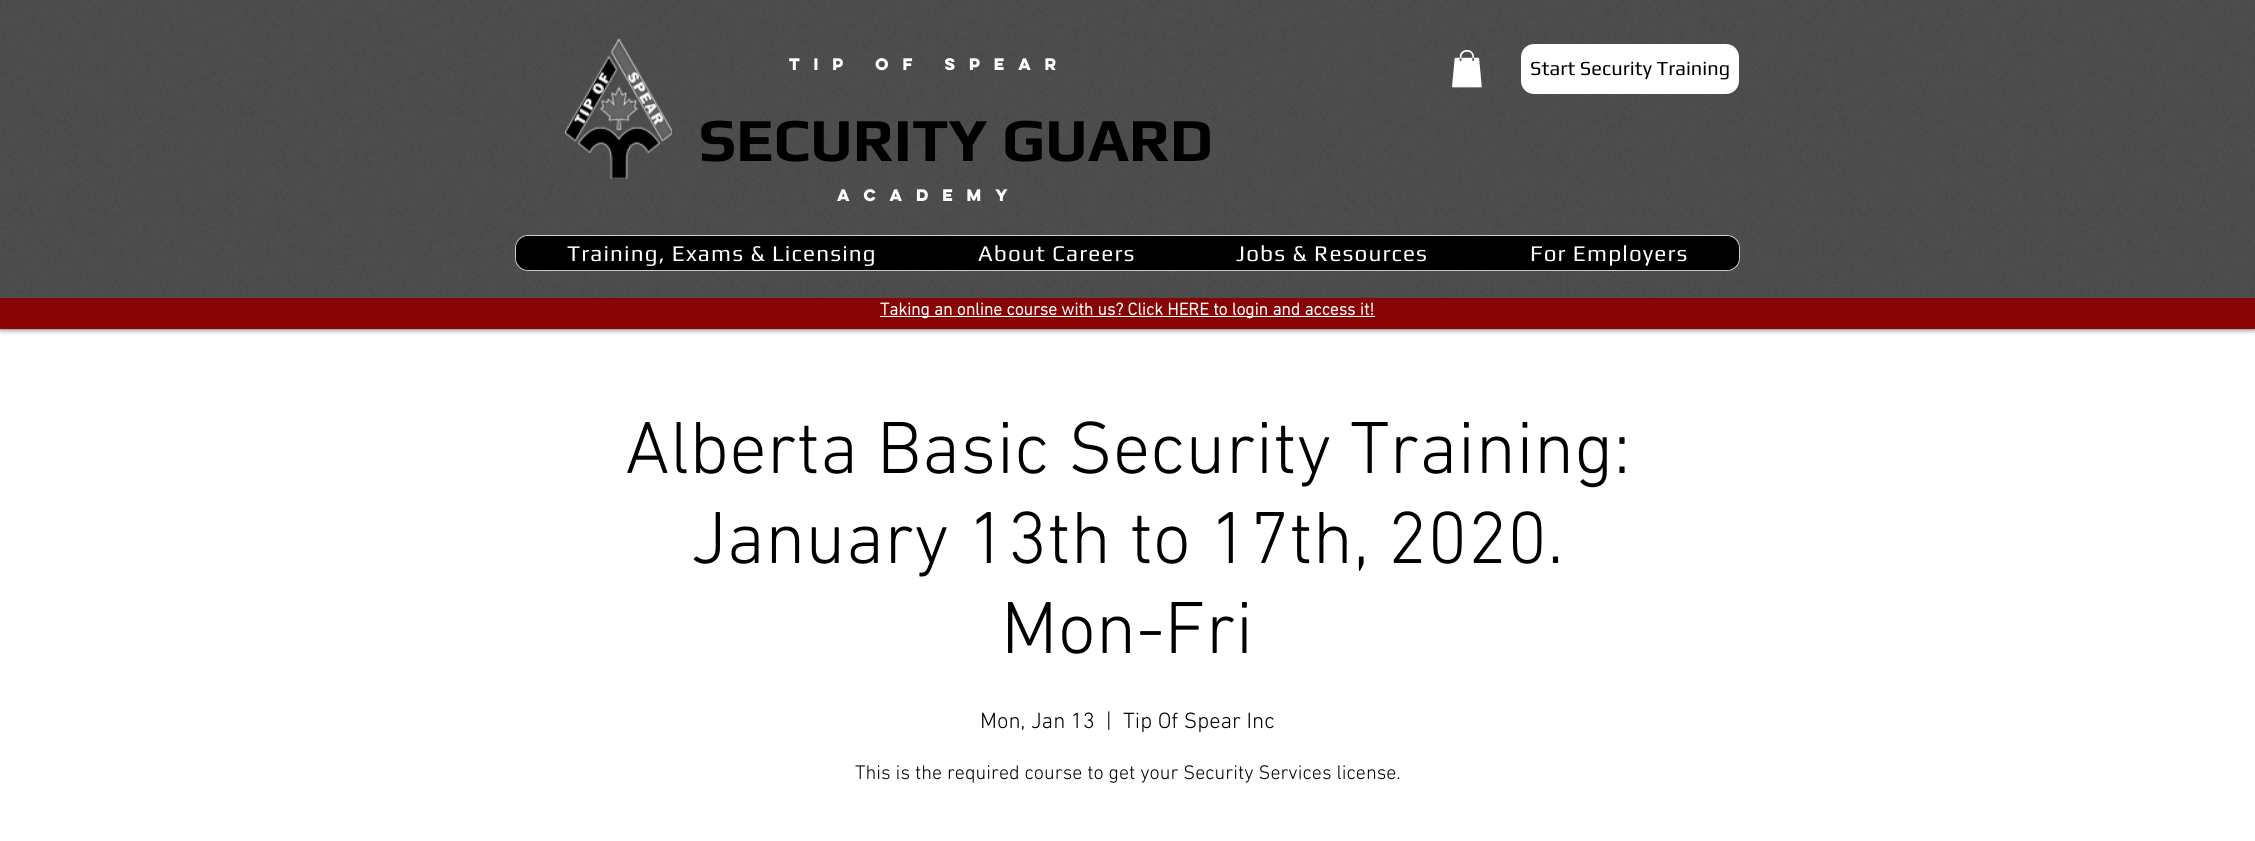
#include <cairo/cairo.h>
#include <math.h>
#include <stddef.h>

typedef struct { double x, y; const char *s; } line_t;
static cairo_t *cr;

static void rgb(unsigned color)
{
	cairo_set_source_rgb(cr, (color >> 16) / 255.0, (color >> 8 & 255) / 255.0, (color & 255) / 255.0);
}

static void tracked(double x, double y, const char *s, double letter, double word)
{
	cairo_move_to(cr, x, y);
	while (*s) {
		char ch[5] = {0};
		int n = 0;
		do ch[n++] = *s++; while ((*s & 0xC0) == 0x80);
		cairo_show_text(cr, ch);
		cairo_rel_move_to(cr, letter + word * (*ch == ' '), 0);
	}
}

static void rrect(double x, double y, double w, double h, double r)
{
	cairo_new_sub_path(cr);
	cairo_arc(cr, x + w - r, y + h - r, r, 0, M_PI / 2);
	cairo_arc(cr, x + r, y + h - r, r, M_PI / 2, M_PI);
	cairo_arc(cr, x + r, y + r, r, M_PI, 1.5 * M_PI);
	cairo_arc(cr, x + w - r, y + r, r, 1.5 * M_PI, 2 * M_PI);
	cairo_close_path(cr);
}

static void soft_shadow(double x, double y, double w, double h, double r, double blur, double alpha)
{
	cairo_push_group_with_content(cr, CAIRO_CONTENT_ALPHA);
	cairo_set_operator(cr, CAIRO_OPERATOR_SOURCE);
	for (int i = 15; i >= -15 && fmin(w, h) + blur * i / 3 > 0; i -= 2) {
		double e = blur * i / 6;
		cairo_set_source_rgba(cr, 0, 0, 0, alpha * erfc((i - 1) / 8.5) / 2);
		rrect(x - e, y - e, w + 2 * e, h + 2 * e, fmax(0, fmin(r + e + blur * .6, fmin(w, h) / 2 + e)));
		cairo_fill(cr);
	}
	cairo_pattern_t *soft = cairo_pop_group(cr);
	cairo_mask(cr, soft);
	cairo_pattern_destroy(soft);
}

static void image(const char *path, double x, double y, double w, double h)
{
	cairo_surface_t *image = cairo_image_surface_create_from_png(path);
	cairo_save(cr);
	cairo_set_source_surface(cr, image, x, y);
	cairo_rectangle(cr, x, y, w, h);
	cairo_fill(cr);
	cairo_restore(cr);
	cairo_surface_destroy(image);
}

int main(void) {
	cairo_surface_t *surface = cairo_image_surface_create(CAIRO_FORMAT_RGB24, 2255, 841);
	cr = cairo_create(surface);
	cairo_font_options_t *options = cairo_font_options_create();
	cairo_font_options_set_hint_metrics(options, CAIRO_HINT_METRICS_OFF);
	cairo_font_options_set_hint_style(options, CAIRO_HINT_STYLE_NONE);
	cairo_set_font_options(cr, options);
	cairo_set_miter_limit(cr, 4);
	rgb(0xffffff);
	cairo_paint(cr);
	rgb(0x000000);
	soft_shadow(0, 0, 2255, 329, 0, 3, 0.7);
	rgb(0x4d4d4d);
	cairo_rectangle(cr, 0, 0, 2255, 298);
	cairo_fill(cr);
	image("img/1.png", 0, 0, 2255, 298);
	image("img/2.png", 565, 38, 108, 141);
	image("img/3.png", 1452, 50, 30, 38);
	rgb(0xffffff);
	rrect(1521, 44, 218, 50, 13);
	cairo_fill(cr);
	rgb(0x000000);
	rrect(515.5, 235.5, 1224, 35, 12.5);
	cairo_fill_preserve(cr);
	rgb(0xcccccc);
	cairo_set_line_width(cr, 1);
	cairo_stroke(cr);
	rgb(0x000000);
	rrect(516, 236, 412, 34, 13);
	cairo_fill(cr);
	rrect(1479, 236, 260, 34, 13);
	cairo_fill(cr);
	rgb(0x880404);
	cairo_rectangle(cr, 0, 298, 2255, 31);
	cairo_fill(cr);
	rgb(0xffffff);
	cairo_rectangle(cr, 880, 316, 495, 1);
	cairo_fill(cr);
	cairo_select_font_face(cr, "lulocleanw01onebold", CAIRO_FONT_SLANT_NORMAL, CAIRO_FONT_WEIGHT_BOLD);
	cairo_set_font_size(cr, 15);
	tracked(789, 70, "Tip of spear", 10.5, 0);
	cairo_select_font_face(cr, "Play", CAIRO_FONT_SLANT_NORMAL, CAIRO_FONT_WEIGHT_NORMAL);
	cairo_set_font_size(cr, 20);
	rgb(0x000000);
	cairo_move_to(cr, 1530, 75);
	cairo_show_text(cr, "Start Security Training");
	cairo_select_font_face(cr, "Play", CAIRO_FONT_SLANT_NORMAL, CAIRO_FONT_WEIGHT_BOLD);
	cairo_set_font_size(cr, 61.25);
	cairo_move_to(cr, 699, 161);
	cairo_show_text(cr, "SECURITY GUARD");
	cairo_select_font_face(cr, "lulocleanw01onebold", CAIRO_FONT_SLANT_NORMAL, CAIRO_FONT_WEIGHT_BOLD);
	cairo_set_font_size(cr, 15);
	rgb(0xffffff);
	tracked(837, 201, "academy", 10.5, 0);
	cairo_select_font_face(cr, "Play", CAIRO_FONT_SLANT_NORMAL, CAIRO_FONT_WEIGHT_NORMAL);
	cairo_set_font_size(cr, 22.5);
	{
		static const line_t items[] = {
			{567, 261, "Training, Exams & Licensing"},
			{978, 261, "About Careers"},
			{1236, 261, "Jobs & Resources"},
			{1530, 261, "For Employers"},
		};
		for (size_t i = 0; i < sizeof items / sizeof *items; i++) {
			tracked(items[i].x, items[i].y, items[i].s, 1.1, 0);
		}
	}
	cairo_select_font_face(cr, "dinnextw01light", CAIRO_FONT_SLANT_NORMAL, CAIRO_FONT_WEIGHT_BOLD);
	cairo_set_font_size(cr, 17.5);
	cairo_move_to(cr, 880, 315);
	cairo_show_text(cr, "Taking an online course with us? Click HERE to login and access it!");
	cairo_select_font_face(cr, "dinnextw01light Light", CAIRO_FONT_SLANT_NORMAL, CAIRO_FONT_WEIGHT_NORMAL);
	cairo_set_font_size(cr, 75);
	rgb(0x000000);
	{
		static const line_t items[] = {
			{625, 473, "Alberta Basic Security Training:"},
			{691, 563, "January 13th to 17th, 2020."},
			{1001, 653, "Mon-Fri"},
		};
		for (size_t i = 0; i < sizeof items / sizeof *items; i++) {
			cairo_move_to(cr, items[i].x, items[i].y);
			cairo_show_text(cr, items[i].s);
		}
	}
	cairo_set_font_size(cr, 22.5);
	{
		static const line_t items[] = {
			{980, 728, "Mon, Jan 13"},
			{1106, 728, "|"},
			{1123, 728, "Tip Of Spear Inc"},
		};
		for (size_t i = 0; i < sizeof items / sizeof *items; i++) {
			cairo_move_to(cr, items[i].x, items[i].y);
			cairo_show_text(cr, items[i].s);
		}
	}
	cairo_set_font_size(cr, 20);
	cairo_move_to(cr, 855, 779);
	cairo_show_text(cr, "This is the required course to get your Security Services license.");
	cairo_surface_write_to_png(surface, "page.png");
	cairo_font_options_destroy(options);
	cairo_destroy(cr);
	cairo_surface_destroy(surface);
	return 0;
}
